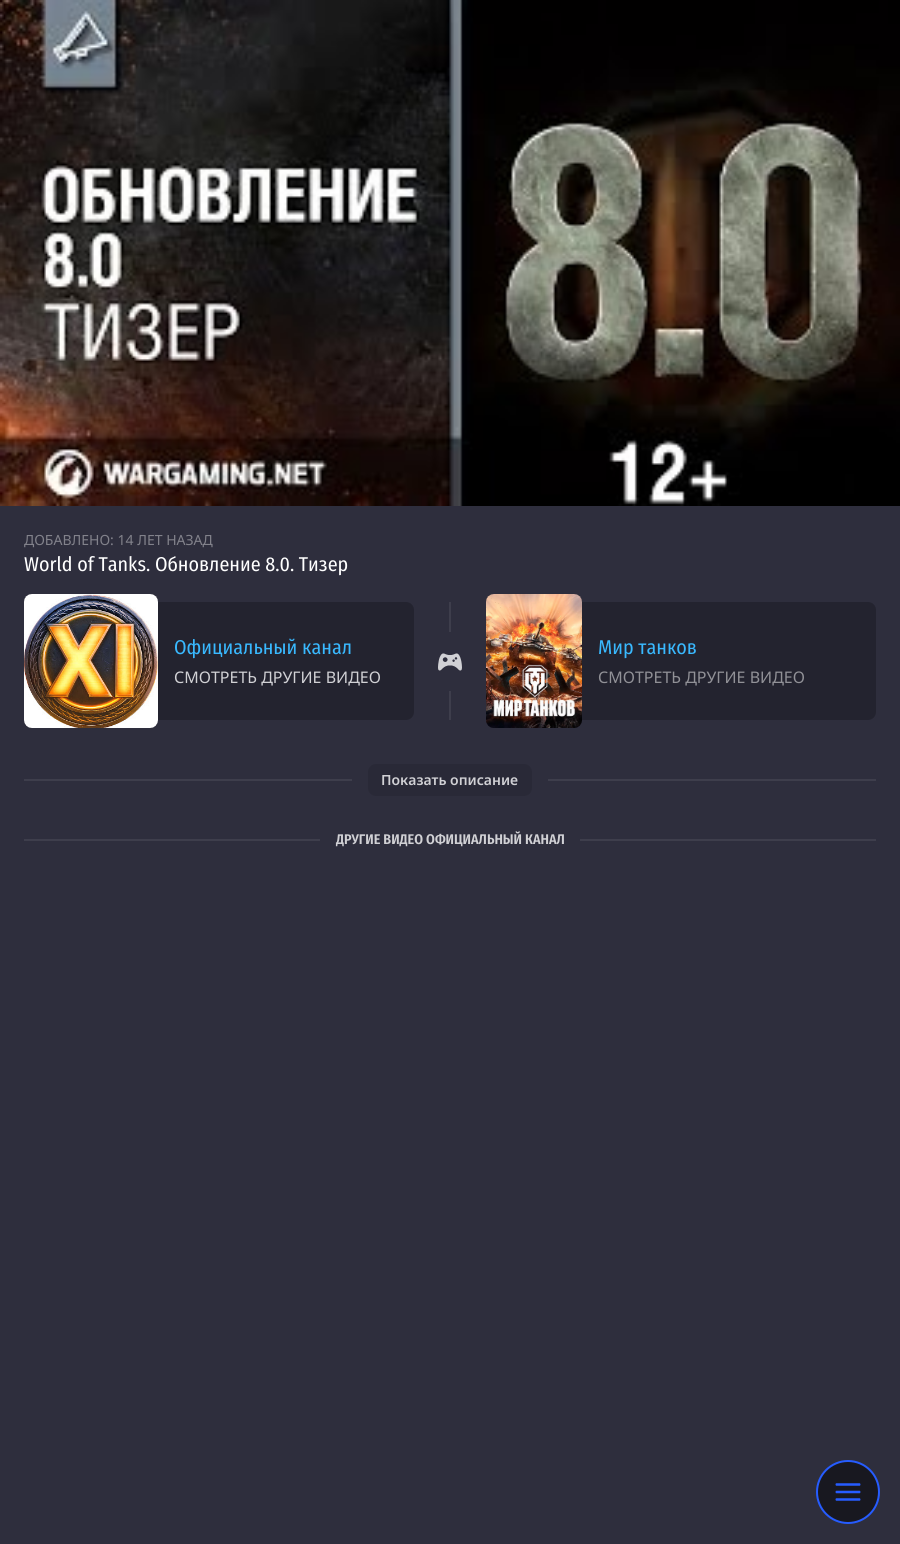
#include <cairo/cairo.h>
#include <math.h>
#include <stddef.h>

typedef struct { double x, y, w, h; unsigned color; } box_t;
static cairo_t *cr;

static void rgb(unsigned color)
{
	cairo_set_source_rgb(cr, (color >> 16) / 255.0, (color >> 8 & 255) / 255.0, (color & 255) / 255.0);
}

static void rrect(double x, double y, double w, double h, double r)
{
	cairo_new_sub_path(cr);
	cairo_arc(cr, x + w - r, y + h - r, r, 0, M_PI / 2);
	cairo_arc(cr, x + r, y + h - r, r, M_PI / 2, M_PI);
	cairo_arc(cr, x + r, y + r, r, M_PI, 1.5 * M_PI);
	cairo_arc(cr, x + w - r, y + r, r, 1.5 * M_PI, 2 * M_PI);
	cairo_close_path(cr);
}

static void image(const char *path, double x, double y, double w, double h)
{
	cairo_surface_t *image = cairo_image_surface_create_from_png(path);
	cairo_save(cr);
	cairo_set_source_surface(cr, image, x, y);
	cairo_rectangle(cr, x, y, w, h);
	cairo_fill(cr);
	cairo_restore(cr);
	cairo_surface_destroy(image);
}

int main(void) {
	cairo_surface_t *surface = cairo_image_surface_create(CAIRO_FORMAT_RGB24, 900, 1544);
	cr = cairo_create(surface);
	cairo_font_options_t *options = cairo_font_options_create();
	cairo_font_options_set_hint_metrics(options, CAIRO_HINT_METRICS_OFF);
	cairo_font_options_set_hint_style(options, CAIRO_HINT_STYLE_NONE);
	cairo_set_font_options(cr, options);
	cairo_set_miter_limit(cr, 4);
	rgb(0x2e2e3d);
	cairo_paint(cr);
	image("img/1.png", 0, 0, 900, 506);
	rgb(0x23232f);
	rrect(24, 602, 390, 118, 8);
	cairo_fill(cr);
	cairo_set_source_rgba(cr, 0.094, 0.094, 0.125, 0.5);
	rrect(24, 594, 134, 134, 8);
	cairo_fill(cr);
	image("img/2.png", 24, 594, 134, 134);
	rgb(0x3e3e4c);
	cairo_rectangle(cr, 449, 602, 2, 30);
	cairo_fill(cr);
	image("img/3.png", 438, 653, 24, 18);
	cairo_rectangle(cr, 449, 691, 2, 29);
	cairo_fill(cr);
	rgb(0x23232f);
	rrect(486, 602, 390, 118, 8);
	cairo_fill(cr);
	cairo_set_source_rgba(cr, 0.094, 0.094, 0.125, 0.5);
	rrect(486, 594, 96, 134, 8);
	cairo_fill(cr);
	image("img/4.png", 486, 594, 96, 134);
	rgb(0x3e3e4c);
	cairo_rectangle(cr, 24, 779, 328, 2);
	cairo_fill(cr);
	rgb(0x292937);
	rrect(368, 764, 164, 32, 8);
	cairo_fill(cr);
	{
		static const box_t items[] = {
			{548, 779, 328, 2, 0x3e3e4c},
			{24, 839, 296, 2, 0x3e3e4c},
			{580, 839, 296, 2, 0x3e3e4c},
		};
		for (size_t i = 0; i < sizeof items / sizeof *items; i++) {
			rgb(items[i].color);
			cairo_rectangle(cr, items[i].x, items[i].y, items[i].w, items[i].h);
			cairo_fill(cr);
		}
	}
	rgb(0x181820);
	cairo_arc(cr, 848, 1492, 31, 0, 2 * M_PI);
	cairo_fill_preserve(cr);
	rgb(0x265cff);
	cairo_stroke(cr);
	image("img/5.png", 835, 1483, 26, 18);
	cairo_select_font_face(cr, "Noto Sans", CAIRO_FONT_SLANT_NORMAL, CAIRO_FONT_WEIGHT_NORMAL);
	cairo_set_font_size(cr, 14);
	rgb(0x82828b);
	cairo_move_to(cr, 24, 545);
	cairo_show_text(cr, "ДОБАВЛЕНО: 14 ЛЕТ НАЗАД");
	cairo_select_font_face(cr, "Fira Sans Condensed", CAIRO_FONT_SLANT_NORMAL, CAIRO_FONT_WEIGHT_NORMAL);
	cairo_set_font_size(cr, 20);
	rgb(0xffffff);
	cairo_move_to(cr, 24, 571);
	cairo_show_text(cr, "World of Tanks. Обновление 8.0. Тизер");
	rgb(0x39b9ff);
	cairo_move_to(cr, 174, 654);
	cairo_show_text(cr, "Официальный канал");
	cairo_select_font_face(cr, "Noto Sans", CAIRO_FONT_SLANT_NORMAL, CAIRO_FONT_WEIGHT_NORMAL);
	cairo_set_font_size(cr, 16);
	rgb(0xd1d1d5);
	cairo_move_to(cr, 174, 683);
	cairo_show_text(cr, "СМОТРЕТЬ ДРУГИЕ ВИДЕО");
	cairo_select_font_face(cr, "Fira Sans Condensed", CAIRO_FONT_SLANT_NORMAL, CAIRO_FONT_WEIGHT_NORMAL);
	cairo_set_font_size(cr, 20);
	rgb(0x39b9ff);
	cairo_move_to(cr, 598, 654);
	cairo_show_text(cr, "Мир танков");
	cairo_select_font_face(cr, "Noto Sans", CAIRO_FONT_SLANT_NORMAL, CAIRO_FONT_WEIGHT_NORMAL);
	cairo_set_font_size(cr, 16);
	rgb(0x919197);
	cairo_move_to(cr, 598, 683);
	cairo_show_text(cr, "СМОТРЕТЬ ДРУГИЕ ВИДЕО");
	cairo_select_font_face(cr, "Noto Sans SemiBold", CAIRO_FONT_SLANT_NORMAL, CAIRO_FONT_WEIGHT_NORMAL);
	cairo_set_font_size(cr, 14);
	rgb(0xd1d1d5);
	cairo_move_to(cr, 381, 785);
	cairo_show_text(cr, "Показать описание");
	cairo_select_font_face(cr, "Fira Sans Condensed SemiBold", CAIRO_FONT_SLANT_NORMAL, CAIRO_FONT_WEIGHT_NORMAL);
	cairo_move_to(cr, 336, 844);
	cairo_show_text(cr, "ДРУГИЕ ВИДЕО ОФИЦИАЛЬНЫЙ КАНАЛ");
	cairo_surface_write_to_png(surface, "page.png");
	cairo_font_options_destroy(options);
	cairo_destroy(cr);
	cairo_surface_destroy(surface);
	return 0;
}
